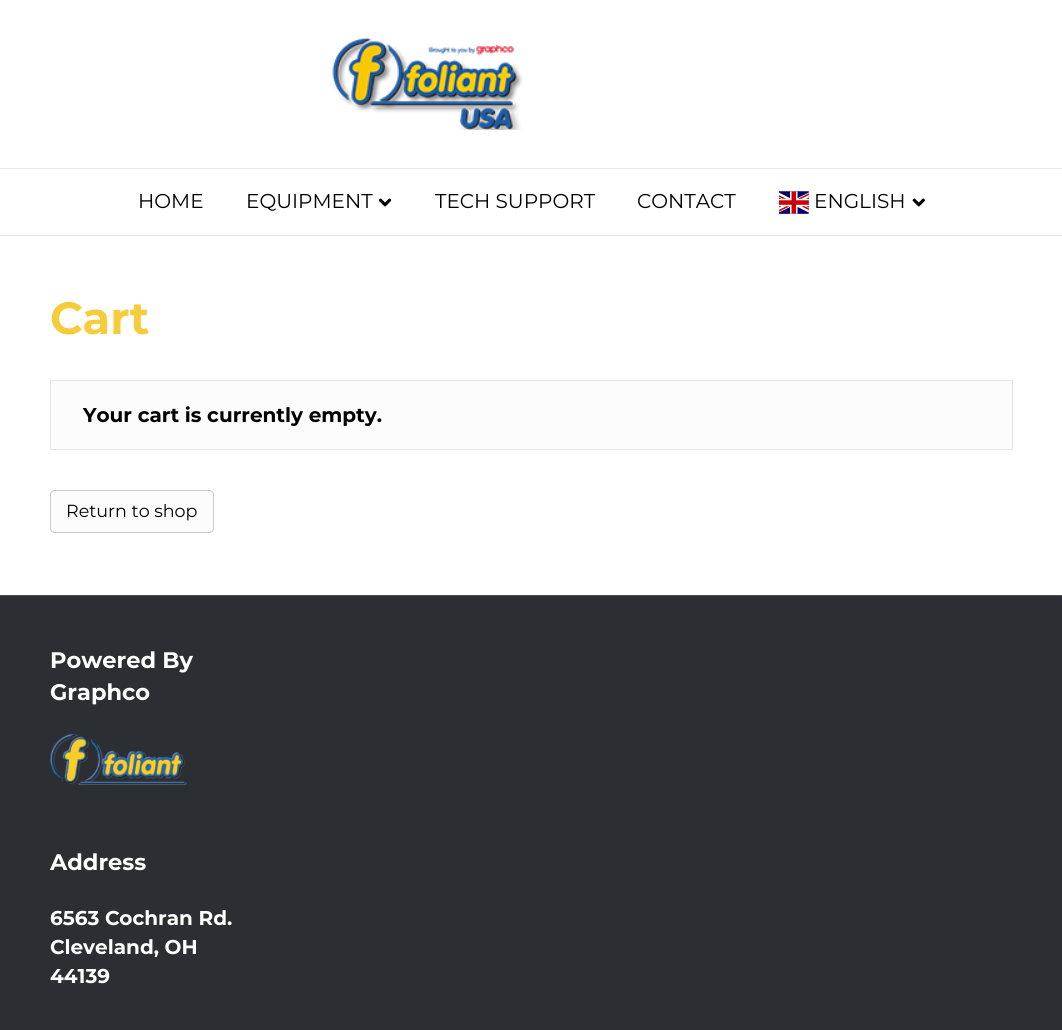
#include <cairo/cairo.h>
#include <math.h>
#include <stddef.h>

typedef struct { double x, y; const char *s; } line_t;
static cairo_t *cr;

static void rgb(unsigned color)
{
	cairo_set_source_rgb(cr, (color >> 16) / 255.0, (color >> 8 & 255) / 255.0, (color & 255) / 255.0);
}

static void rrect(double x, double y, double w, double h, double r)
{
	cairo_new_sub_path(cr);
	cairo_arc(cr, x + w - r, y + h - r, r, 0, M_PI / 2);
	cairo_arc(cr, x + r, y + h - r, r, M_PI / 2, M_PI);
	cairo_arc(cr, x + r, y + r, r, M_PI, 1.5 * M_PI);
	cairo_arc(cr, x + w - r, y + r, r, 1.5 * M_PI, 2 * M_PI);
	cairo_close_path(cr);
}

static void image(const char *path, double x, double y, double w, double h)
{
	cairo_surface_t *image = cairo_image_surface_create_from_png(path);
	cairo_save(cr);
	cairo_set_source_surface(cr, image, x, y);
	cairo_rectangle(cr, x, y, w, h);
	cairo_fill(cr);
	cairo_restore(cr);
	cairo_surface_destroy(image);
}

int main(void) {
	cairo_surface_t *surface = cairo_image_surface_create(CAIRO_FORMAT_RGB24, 1062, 1030);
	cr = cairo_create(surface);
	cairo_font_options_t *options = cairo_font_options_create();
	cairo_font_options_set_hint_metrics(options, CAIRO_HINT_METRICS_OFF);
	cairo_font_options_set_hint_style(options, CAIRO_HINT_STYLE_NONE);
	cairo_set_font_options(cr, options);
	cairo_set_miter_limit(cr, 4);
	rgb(0xffffff);
	cairo_paint(cr);
	image("img/1.png", 332, 37, 191, 93);
	rgb(0xe6e6e6);
	cairo_rectangle(cr, 0, 168, 1062, 1);
	cairo_fill(cr);
	cairo_rectangle(cr, 0, 235, 1062, 1);
	cairo_fill(cr);
	image("img/2.png", 378, 198, 14, 9);
	image("img/3.png", 779, 191, 30, 23);
	image("img/4.png", 912, 198, 13, 9);
	rgb(0xfcfcfc);
	cairo_rectangle(cr, 50.5, 380.5, 962, 69);
	cairo_fill_preserve(cr);
	rgb(0xe6e6e6);
	cairo_set_line_width(cr, 1);
	cairo_stroke(cr);
	rgb(0xfcfcfc);
	rrect(50.5, 490.5, 163, 42, 4.5);
	cairo_fill_preserve(cr);
	rgb(0xcccccc);
	cairo_stroke(cr);
	rgb(0x2b2e32);
	cairo_rectangle(cr, 0, 596, 1062, 434);
	cairo_fill(cr);
	rgb(0x4a4f56);
	cairo_rectangle(cr, 0, 595, 1062, 1);
	cairo_fill(cr);
	image("img/5.png", 50, 733, 137, 52);
	cairo_select_font_face(cr, "Montserrat", CAIRO_FONT_SLANT_NORMAL, CAIRO_FONT_WEIGHT_NORMAL);
	cairo_set_font_size(cr, 20);
	rgb(0x000000);
	{
		static const line_t items[] = {
			{138, 208, "HOME"},
			{246, 208, "EQUIPMENT"},
			{435, 208, "TECH SUPPORT"},
			{637, 208, "CONTACT"},
			{814, 208, "ENGLISH"},
		};
		for (size_t i = 0; i < sizeof items / sizeof *items; i++) {
			cairo_move_to(cr, items[i].x, items[i].y);
			cairo_show_text(cr, items[i].s);
		}
	}
	cairo_select_font_face(cr, "Montserrat", CAIRO_FONT_SLANT_NORMAL, CAIRO_FONT_WEIGHT_BOLD);
	cairo_set_font_size(cr, 45);
	rgb(0xf7cc3a);
	cairo_move_to(cr, 50, 334);
	cairo_show_text(cr, "Cart");
	cairo_set_font_size(cr, 20);
	rgb(0x000000);
	cairo_move_to(cr, 83, 422);
	cairo_show_text(cr, "Your cart is currently empty.");
	cairo_select_font_face(cr, "Montserrat", CAIRO_FONT_SLANT_NORMAL, CAIRO_FONT_WEIGHT_NORMAL);
	cairo_set_font_size(cr, 17.5);
	cairo_move_to(cr, 66, 517);
	cairo_show_text(cr, "Return to shop");
	cairo_select_font_face(cr, "Montserrat", CAIRO_FONT_SLANT_NORMAL, CAIRO_FONT_WEIGHT_BOLD);
	cairo_set_font_size(cr, 22.5);
	rgb(0xffffff);
	{
		static const line_t items[] = {
			{50, 668, "Powered By"},
			{50, 700, "Graphco"},
			{50, 870, "Address"},
		};
		for (size_t i = 0; i < sizeof items / sizeof *items; i++) {
			cairo_move_to(cr, items[i].x, items[i].y);
			cairo_show_text(cr, items[i].s);
		}
	}
	cairo_set_font_size(cr, 20);
	{
		static const line_t items[] = {
			{50, 925, "6563 Cochran Rd."},
			{50, 954, "Cleveland, OH"},
			{50, 983, "44139"},
		};
		for (size_t i = 0; i < sizeof items / sizeof *items; i++) {
			cairo_move_to(cr, items[i].x, items[i].y);
			cairo_show_text(cr, items[i].s);
		}
	}
	cairo_surface_write_to_png(surface, "page.png");
	cairo_font_options_destroy(options);
	cairo_destroy(cr);
	cairo_surface_destroy(surface);
	return 0;
}
